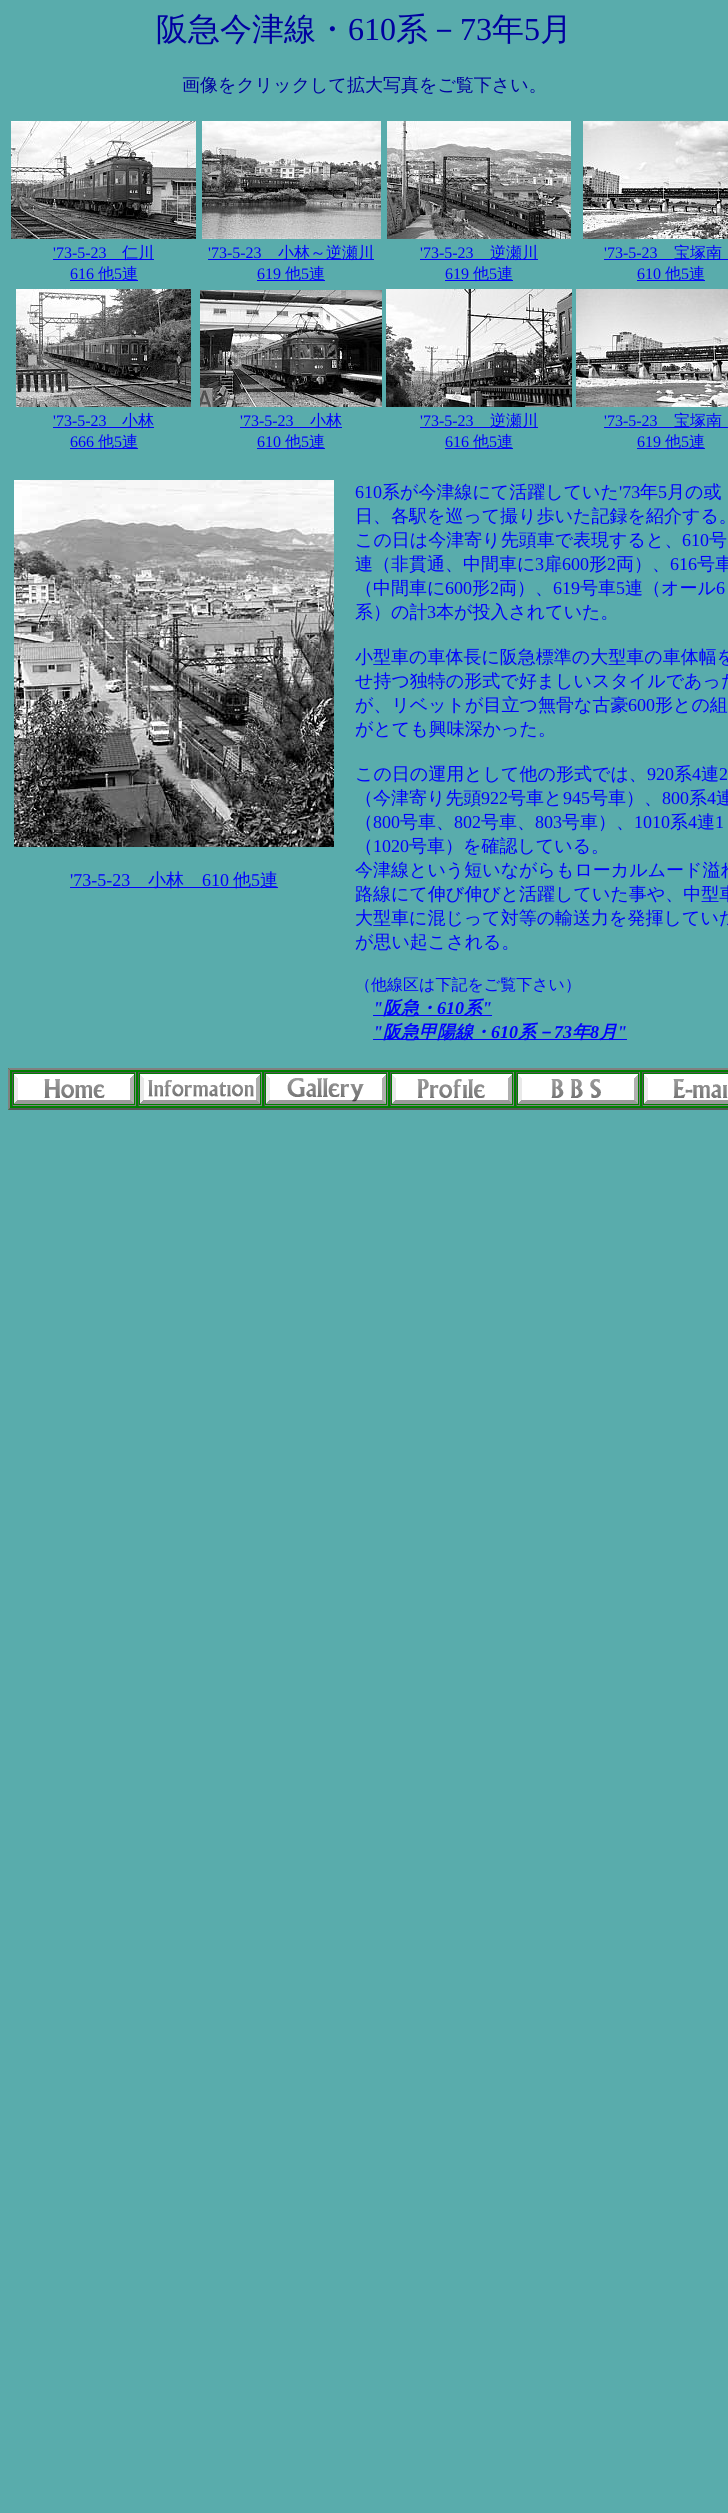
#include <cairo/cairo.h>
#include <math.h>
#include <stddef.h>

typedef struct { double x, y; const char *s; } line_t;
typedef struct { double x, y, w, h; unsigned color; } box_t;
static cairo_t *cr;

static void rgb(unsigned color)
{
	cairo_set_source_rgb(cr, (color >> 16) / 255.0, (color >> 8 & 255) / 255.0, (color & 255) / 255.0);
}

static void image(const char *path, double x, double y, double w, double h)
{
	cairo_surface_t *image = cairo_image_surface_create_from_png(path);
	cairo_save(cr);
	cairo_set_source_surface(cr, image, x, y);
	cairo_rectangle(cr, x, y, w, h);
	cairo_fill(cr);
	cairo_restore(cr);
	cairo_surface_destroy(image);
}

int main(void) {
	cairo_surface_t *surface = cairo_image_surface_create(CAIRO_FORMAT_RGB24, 728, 2513);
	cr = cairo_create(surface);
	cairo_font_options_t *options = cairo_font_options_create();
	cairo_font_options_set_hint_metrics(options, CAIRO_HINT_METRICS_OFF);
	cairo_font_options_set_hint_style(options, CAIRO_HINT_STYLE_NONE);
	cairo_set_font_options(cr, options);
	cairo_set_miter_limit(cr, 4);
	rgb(0x59acac);
	cairo_paint(cr);
	image("img/1.png", 11, 121, 185, 118);
	image("img/2.png", 202, 121, 179, 118);
	image("img/3.png", 387, 121, 184, 118);
	image("img/4.png", 583, 121, 145, 118);
	{
		static const box_t items[] = {
			{53, 259, 101, 1, 0x0000ff},
			{70, 280, 68, 1, 0x0000ff},
			{208, 259, 166, 1, 0x0000ff},
			{257, 280, 68, 1, 0x0000ff},
			{420, 259, 118, 1, 0x0000ff},
			{445, 280, 68, 1, 0x0000ff},
			{604, 259, 124, 1, 0x0000ff},
			{637, 280, 68, 1, 0x0000ff},
		};
		for (size_t i = 0; i < sizeof items / sizeof *items; i++) {
			rgb(items[i].color);
			cairo_rectangle(cr, items[i].x, items[i].y, items[i].w, items[i].h);
			cairo_fill(cr);
		}
	}
	image("img/5.png", 16, 289, 175, 118);
	image("img/6.png", 200, 290, 182, 117);
	image("img/7.png", 386, 289, 186, 118);
	image("img/8.png", 576, 289, 152, 118);
	{
		static const box_t items[] = {
			{53, 427, 101, 1, 0x0000ff},
			{70, 448, 68, 1, 0x0000ff},
			{240, 427, 102, 1, 0x0000ff},
			{257, 448, 68, 1, 0x0000ff},
			{420, 427, 118, 1, 0x0000ff},
			{445, 448, 68, 1, 0x0000ff},
			{604, 427, 124, 1, 0x0000ff},
			{637, 448, 68, 1, 0x0000ff},
		};
		for (size_t i = 0; i < sizeof items / sizeof *items; i++) {
			rgb(items[i].color);
			cairo_rectangle(cr, items[i].x, items[i].y, items[i].w, items[i].h);
			cairo_fill(cr);
		}
	}
	image("img/9.png", 14, 480, 320, 367);
	{
		static const box_t items[] = {
			{70, 887, 208, 1, 0x0000ff},
			{373, 1015, 119, 1, 0x0000ff},
			{373, 1039, 254, 1, 0x0000ff},
			{8, 1068, 720, 42, 0x008000},
		};
		for (size_t i = 0; i < sizeof items / sizeof *items; i++) {
			rgb(items[i].color);
			cairo_rectangle(cr, items[i].x, items[i].y, items[i].w, items[i].h);
			cairo_fill(cr);
		}
	}
	rgb(0x808080);
	cairo_new_path(cr);
	cairo_move_to(cr, 8, 1068);
	cairo_line_to(cr, 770, 1068);
	cairo_line_to(cr, 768, 1070);
	cairo_line_to(cr, 10, 1070);
	cairo_close_path(cr);
	cairo_fill(cr);
	rgb(0x555555);
	cairo_new_path(cr);
	cairo_move_to(cr, 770, 1110);
	cairo_line_to(cr, 8, 1110);
	cairo_line_to(cr, 10, 1108);
	cairo_line_to(cr, 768, 1108);
	cairo_close_path(cr);
	cairo_fill(cr);
	rgb(0x808080);
	cairo_new_path(cr);
	cairo_move_to(cr, 8, 1110);
	cairo_line_to(cr, 8, 1068);
	cairo_line_to(cr, 10, 1070);
	cairo_line_to(cr, 10, 1108);
	cairo_close_path(cr);
	cairo_fill(cr);
	{
		static const box_t items[] = {
			{12, 1072, 124, 1, 0x555555},
			{135, 1072, 1, 34, 0x808080},
			{12, 1105, 124, 1, 0x808080},
			{12, 1072, 1, 34, 0x555555},
		};
		for (size_t i = 0; i < sizeof items / sizeof *items; i++) {
			rgb(items[i].color);
			cairo_rectangle(cr, items[i].x, items[i].y, items[i].w, items[i].h);
			cairo_fill(cr);
		}
	}
	image("img/10.png", 14, 1074, 120, 30);
	{
		static const box_t items[] = {
			{138, 1072, 124, 1, 0x555555},
			{261, 1072, 1, 34, 0x808080},
			{138, 1105, 124, 1, 0x808080},
			{138, 1072, 1, 34, 0x555555},
		};
		for (size_t i = 0; i < sizeof items / sizeof *items; i++) {
			rgb(items[i].color);
			cairo_rectangle(cr, items[i].x, items[i].y, items[i].w, items[i].h);
			cairo_fill(cr);
		}
	}
	image("img/11.png", 140, 1074, 120, 30);
	{
		static const box_t items[] = {
			{264, 1072, 124, 1, 0x555555},
			{387, 1072, 1, 34, 0x808080},
			{264, 1105, 124, 1, 0x808080},
			{264, 1072, 1, 34, 0x555555},
		};
		for (size_t i = 0; i < sizeof items / sizeof *items; i++) {
			rgb(items[i].color);
			cairo_rectangle(cr, items[i].x, items[i].y, items[i].w, items[i].h);
			cairo_fill(cr);
		}
	}
	image("img/12.png", 266, 1074, 120, 30);
	{
		static const box_t items[] = {
			{390, 1072, 124, 1, 0x555555},
			{513, 1072, 1, 34, 0x808080},
			{390, 1105, 124, 1, 0x808080},
			{390, 1072, 1, 34, 0x555555},
		};
		for (size_t i = 0; i < sizeof items / sizeof *items; i++) {
			rgb(items[i].color);
			cairo_rectangle(cr, items[i].x, items[i].y, items[i].w, items[i].h);
			cairo_fill(cr);
		}
	}
	image("img/13.png", 392, 1074, 120, 30);
	{
		static const box_t items[] = {
			{516, 1072, 124, 1, 0x555555},
			{639, 1072, 1, 34, 0x808080},
			{516, 1105, 124, 1, 0x808080},
			{516, 1072, 1, 34, 0x555555},
		};
		for (size_t i = 0; i < sizeof items / sizeof *items; i++) {
			rgb(items[i].color);
			cairo_rectangle(cr, items[i].x, items[i].y, items[i].w, items[i].h);
			cairo_fill(cr);
		}
	}
	image("img/14.png", 518, 1074, 120, 30);
	{
		static const box_t items[] = {
			{642, 1072, 86, 1, 0x555555},
			{642, 1105, 86, 1, 0x808080},
			{642, 1072, 1, 34, 0x555555},
		};
		for (size_t i = 0; i < sizeof items / sizeof *items; i++) {
			rgb(items[i].color);
			cairo_rectangle(cr, items[i].x, items[i].y, items[i].w, items[i].h);
			cairo_fill(cr);
		}
	}
	image("img/15.png", 644, 1074, 84, 30);
	cairo_select_font_face(cr, "WenQuanYi Zen Hei Medium", CAIRO_FONT_SLANT_NORMAL, CAIRO_FONT_WEIGHT_NORMAL);
	cairo_set_font_size(cr, 32);
	rgb(0x0000a0);
	cairo_move_to(cr, 156, 40);
	cairo_show_text(cr, "阪急今津線・");
	cairo_select_font_face(cr, "Liberation Serif", CAIRO_FONT_SLANT_NORMAL, CAIRO_FONT_WEIGHT_NORMAL);
	cairo_move_to(cr, 348, 40);
	cairo_show_text(cr, "610");
	cairo_select_font_face(cr, "WenQuanYi Zen Hei Medium", CAIRO_FONT_SLANT_NORMAL, CAIRO_FONT_WEIGHT_NORMAL);
	cairo_move_to(cr, 396, 40);
	cairo_show_text(cr, "系－");
	cairo_select_font_face(cr, "Liberation Serif", CAIRO_FONT_SLANT_NORMAL, CAIRO_FONT_WEIGHT_NORMAL);
	cairo_move_to(cr, 460, 40);
	cairo_show_text(cr, "73");
	cairo_select_font_face(cr, "WenQuanYi Zen Hei Medium", CAIRO_FONT_SLANT_NORMAL, CAIRO_FONT_WEIGHT_NORMAL);
	cairo_move_to(cr, 492, 40);
	cairo_show_text(cr, "年");
	cairo_select_font_face(cr, "Liberation Serif", CAIRO_FONT_SLANT_NORMAL, CAIRO_FONT_WEIGHT_NORMAL);
	cairo_move_to(cr, 524, 40);
	cairo_show_text(cr, "5");
	cairo_select_font_face(cr, "WenQuanYi Zen Hei Medium", CAIRO_FONT_SLANT_NORMAL, CAIRO_FONT_WEIGHT_NORMAL);
	cairo_move_to(cr, 540, 40);
	cairo_show_text(cr, "月");
	cairo_set_font_size(cr, 18);
	cairo_move_to(cr, 182, 91);
	cairo_show_text(cr, "画像をクリックして拡大写真をご覧下さい。");
	cairo_select_font_face(cr, "Liberation Serif", CAIRO_FONT_SLANT_NORMAL, CAIRO_FONT_WEIGHT_NORMAL);
	cairo_set_font_size(cr, 16);
	rgb(0x0000ff);
	cairo_move_to(cr, 53, 258);
	cairo_show_text(cr, "'73-5-23");
	cairo_select_font_face(cr, "WenQuanYi Zen Hei Medium", CAIRO_FONT_SLANT_NORMAL, CAIRO_FONT_WEIGHT_NORMAL);
	cairo_move_to(cr, 122, 258);
	cairo_show_text(cr, "仁川");
	cairo_select_font_face(cr, "Liberation Serif", CAIRO_FONT_SLANT_NORMAL, CAIRO_FONT_WEIGHT_NORMAL);
	cairo_move_to(cr, 70, 279);
	cairo_show_text(cr, "616");
	cairo_select_font_face(cr, "WenQuanYi Zen Hei Medium", CAIRO_FONT_SLANT_NORMAL, CAIRO_FONT_WEIGHT_NORMAL);
	cairo_move_to(cr, 98, 279);
	cairo_show_text(cr, "他");
	cairo_select_font_face(cr, "Liberation Serif", CAIRO_FONT_SLANT_NORMAL, CAIRO_FONT_WEIGHT_NORMAL);
	cairo_move_to(cr, 114, 279);
	cairo_show_text(cr, "5");
	cairo_select_font_face(cr, "WenQuanYi Zen Hei Medium", CAIRO_FONT_SLANT_NORMAL, CAIRO_FONT_WEIGHT_NORMAL);
	cairo_move_to(cr, 122, 279);
	cairo_show_text(cr, "連");
	cairo_select_font_face(cr, "Liberation Serif", CAIRO_FONT_SLANT_NORMAL, CAIRO_FONT_WEIGHT_NORMAL);
	cairo_move_to(cr, 208, 258);
	cairo_show_text(cr, "'73-5-23");
	cairo_select_font_face(cr, "WenQuanYi Zen Hei Medium", CAIRO_FONT_SLANT_NORMAL, CAIRO_FONT_WEIGHT_NORMAL);
	cairo_move_to(cr, 278, 258);
	cairo_show_text(cr, "小林～逆瀬川");
	cairo_select_font_face(cr, "Liberation Serif", CAIRO_FONT_SLANT_NORMAL, CAIRO_FONT_WEIGHT_NORMAL);
	cairo_move_to(cr, 257, 279);
	cairo_show_text(cr, "619");
	cairo_select_font_face(cr, "WenQuanYi Zen Hei Medium", CAIRO_FONT_SLANT_NORMAL, CAIRO_FONT_WEIGHT_NORMAL);
	cairo_move_to(cr, 285, 279);
	cairo_show_text(cr, "他");
	cairo_select_font_face(cr, "Liberation Serif", CAIRO_FONT_SLANT_NORMAL, CAIRO_FONT_WEIGHT_NORMAL);
	cairo_move_to(cr, 301, 279);
	cairo_show_text(cr, "5");
	cairo_select_font_face(cr, "WenQuanYi Zen Hei Medium", CAIRO_FONT_SLANT_NORMAL, CAIRO_FONT_WEIGHT_NORMAL);
	cairo_move_to(cr, 309, 279);
	cairo_show_text(cr, "連");
	cairo_select_font_face(cr, "Liberation Serif", CAIRO_FONT_SLANT_NORMAL, CAIRO_FONT_WEIGHT_NORMAL);
	cairo_move_to(cr, 420, 258);
	cairo_show_text(cr, "'73-5-23");
	cairo_select_font_face(cr, "WenQuanYi Zen Hei Medium", CAIRO_FONT_SLANT_NORMAL, CAIRO_FONT_WEIGHT_NORMAL);
	cairo_move_to(cr, 490, 258);
	cairo_show_text(cr, "逆瀬川");
	cairo_select_font_face(cr, "Liberation Serif", CAIRO_FONT_SLANT_NORMAL, CAIRO_FONT_WEIGHT_NORMAL);
	cairo_move_to(cr, 445, 279);
	cairo_show_text(cr, "619");
	cairo_select_font_face(cr, "WenQuanYi Zen Hei Medium", CAIRO_FONT_SLANT_NORMAL, CAIRO_FONT_WEIGHT_NORMAL);
	cairo_move_to(cr, 473, 279);
	cairo_show_text(cr, "他");
	cairo_select_font_face(cr, "Liberation Serif", CAIRO_FONT_SLANT_NORMAL, CAIRO_FONT_WEIGHT_NORMAL);
	cairo_move_to(cr, 489, 279);
	cairo_show_text(cr, "5");
	cairo_select_font_face(cr, "WenQuanYi Zen Hei Medium", CAIRO_FONT_SLANT_NORMAL, CAIRO_FONT_WEIGHT_NORMAL);
	cairo_move_to(cr, 497, 279);
	cairo_show_text(cr, "連");
	cairo_select_font_face(cr, "Liberation Serif", CAIRO_FONT_SLANT_NORMAL, CAIRO_FONT_WEIGHT_NORMAL);
	cairo_move_to(cr, 604, 258);
	cairo_show_text(cr, "'73-5-23");
	cairo_select_font_face(cr, "WenQuanYi Zen Hei Medium", CAIRO_FONT_SLANT_NORMAL, CAIRO_FONT_WEIGHT_NORMAL);
	cairo_move_to(cr, 674, 258);
	cairo_show_text(cr, "宝塚南");
	cairo_select_font_face(cr, "Liberation Serif", CAIRO_FONT_SLANT_NORMAL, CAIRO_FONT_WEIGHT_NORMAL);
	cairo_move_to(cr, 637, 279);
	cairo_show_text(cr, "610");
	cairo_select_font_face(cr, "WenQuanYi Zen Hei Medium", CAIRO_FONT_SLANT_NORMAL, CAIRO_FONT_WEIGHT_NORMAL);
	cairo_move_to(cr, 665, 279);
	cairo_show_text(cr, "他");
	cairo_select_font_face(cr, "Liberation Serif", CAIRO_FONT_SLANT_NORMAL, CAIRO_FONT_WEIGHT_NORMAL);
	cairo_move_to(cr, 681, 279);
	cairo_show_text(cr, "5");
	cairo_select_font_face(cr, "WenQuanYi Zen Hei Medium", CAIRO_FONT_SLANT_NORMAL, CAIRO_FONT_WEIGHT_NORMAL);
	cairo_move_to(cr, 689, 279);
	cairo_show_text(cr, "連");
	cairo_select_font_face(cr, "Liberation Serif", CAIRO_FONT_SLANT_NORMAL, CAIRO_FONT_WEIGHT_NORMAL);
	cairo_move_to(cr, 53, 426);
	cairo_show_text(cr, "'73-5-23");
	cairo_select_font_face(cr, "WenQuanYi Zen Hei Medium", CAIRO_FONT_SLANT_NORMAL, CAIRO_FONT_WEIGHT_NORMAL);
	cairo_move_to(cr, 122, 426);
	cairo_show_text(cr, "小林");
	cairo_select_font_face(cr, "Liberation Serif", CAIRO_FONT_SLANT_NORMAL, CAIRO_FONT_WEIGHT_NORMAL);
	cairo_move_to(cr, 70, 447);
	cairo_show_text(cr, "666");
	cairo_select_font_face(cr, "WenQuanYi Zen Hei Medium", CAIRO_FONT_SLANT_NORMAL, CAIRO_FONT_WEIGHT_NORMAL);
	cairo_move_to(cr, 98, 447);
	cairo_show_text(cr, "他");
	cairo_select_font_face(cr, "Liberation Serif", CAIRO_FONT_SLANT_NORMAL, CAIRO_FONT_WEIGHT_NORMAL);
	cairo_move_to(cr, 114, 447);
	cairo_show_text(cr, "5");
	cairo_select_font_face(cr, "WenQuanYi Zen Hei Medium", CAIRO_FONT_SLANT_NORMAL, CAIRO_FONT_WEIGHT_NORMAL);
	cairo_move_to(cr, 122, 447);
	cairo_show_text(cr, "連");
	cairo_select_font_face(cr, "Liberation Serif", CAIRO_FONT_SLANT_NORMAL, CAIRO_FONT_WEIGHT_NORMAL);
	cairo_move_to(cr, 240, 426);
	cairo_show_text(cr, "'73-5-23");
	cairo_select_font_face(cr, "WenQuanYi Zen Hei Medium", CAIRO_FONT_SLANT_NORMAL, CAIRO_FONT_WEIGHT_NORMAL);
	cairo_move_to(cr, 310, 426);
	cairo_show_text(cr, "小林");
	cairo_select_font_face(cr, "Liberation Serif", CAIRO_FONT_SLANT_NORMAL, CAIRO_FONT_WEIGHT_NORMAL);
	cairo_move_to(cr, 257, 447);
	cairo_show_text(cr, "610");
	cairo_select_font_face(cr, "WenQuanYi Zen Hei Medium", CAIRO_FONT_SLANT_NORMAL, CAIRO_FONT_WEIGHT_NORMAL);
	cairo_move_to(cr, 285, 447);
	cairo_show_text(cr, "他");
	cairo_select_font_face(cr, "Liberation Serif", CAIRO_FONT_SLANT_NORMAL, CAIRO_FONT_WEIGHT_NORMAL);
	cairo_move_to(cr, 301, 447);
	cairo_show_text(cr, "5");
	cairo_select_font_face(cr, "WenQuanYi Zen Hei Medium", CAIRO_FONT_SLANT_NORMAL, CAIRO_FONT_WEIGHT_NORMAL);
	cairo_move_to(cr, 309, 447);
	cairo_show_text(cr, "連");
	cairo_select_font_face(cr, "Liberation Serif", CAIRO_FONT_SLANT_NORMAL, CAIRO_FONT_WEIGHT_NORMAL);
	cairo_move_to(cr, 420, 426);
	cairo_show_text(cr, "'73-5-23");
	cairo_select_font_face(cr, "WenQuanYi Zen Hei Medium", CAIRO_FONT_SLANT_NORMAL, CAIRO_FONT_WEIGHT_NORMAL);
	cairo_move_to(cr, 490, 426);
	cairo_show_text(cr, "逆瀬川");
	cairo_select_font_face(cr, "Liberation Serif", CAIRO_FONT_SLANT_NORMAL, CAIRO_FONT_WEIGHT_NORMAL);
	cairo_move_to(cr, 445, 447);
	cairo_show_text(cr, "616");
	cairo_select_font_face(cr, "WenQuanYi Zen Hei Medium", CAIRO_FONT_SLANT_NORMAL, CAIRO_FONT_WEIGHT_NORMAL);
	cairo_move_to(cr, 473, 447);
	cairo_show_text(cr, "他");
	cairo_select_font_face(cr, "Liberation Serif", CAIRO_FONT_SLANT_NORMAL, CAIRO_FONT_WEIGHT_NORMAL);
	cairo_move_to(cr, 489, 447);
	cairo_show_text(cr, "5");
	cairo_select_font_face(cr, "WenQuanYi Zen Hei Medium", CAIRO_FONT_SLANT_NORMAL, CAIRO_FONT_WEIGHT_NORMAL);
	cairo_move_to(cr, 497, 447);
	cairo_show_text(cr, "連");
	cairo_select_font_face(cr, "Liberation Serif", CAIRO_FONT_SLANT_NORMAL, CAIRO_FONT_WEIGHT_NORMAL);
	cairo_move_to(cr, 604, 426);
	cairo_show_text(cr, "'73-5-23");
	cairo_select_font_face(cr, "WenQuanYi Zen Hei Medium", CAIRO_FONT_SLANT_NORMAL, CAIRO_FONT_WEIGHT_NORMAL);
	cairo_move_to(cr, 674, 426);
	cairo_show_text(cr, "宝塚南");
	cairo_select_font_face(cr, "Liberation Serif", CAIRO_FONT_SLANT_NORMAL, CAIRO_FONT_WEIGHT_NORMAL);
	cairo_move_to(cr, 637, 447);
	cairo_show_text(cr, "619");
	cairo_select_font_face(cr, "WenQuanYi Zen Hei Medium", CAIRO_FONT_SLANT_NORMAL, CAIRO_FONT_WEIGHT_NORMAL);
	cairo_move_to(cr, 665, 447);
	cairo_show_text(cr, "他");
	cairo_select_font_face(cr, "Liberation Serif", CAIRO_FONT_SLANT_NORMAL, CAIRO_FONT_WEIGHT_NORMAL);
	cairo_move_to(cr, 681, 447);
	cairo_show_text(cr, "5");
	cairo_select_font_face(cr, "WenQuanYi Zen Hei Medium", CAIRO_FONT_SLANT_NORMAL, CAIRO_FONT_WEIGHT_NORMAL);
	cairo_move_to(cr, 689, 447);
	cairo_show_text(cr, "連");
	cairo_select_font_face(cr, "Liberation Serif", CAIRO_FONT_SLANT_NORMAL, CAIRO_FONT_WEIGHT_NORMAL);
	cairo_set_font_size(cr, 18);
	cairo_move_to(cr, 70, 886);
	cairo_show_text(cr, "'73-5-23");
	cairo_select_font_face(cr, "WenQuanYi Zen Hei Medium", CAIRO_FONT_SLANT_NORMAL, CAIRO_FONT_WEIGHT_NORMAL);
	cairo_move_to(cr, 148, 886);
	cairo_show_text(cr, "小林");
	cairo_select_font_face(cr, "Liberation Serif", CAIRO_FONT_SLANT_NORMAL, CAIRO_FONT_WEIGHT_NORMAL);
	cairo_move_to(cr, 202, 886);
	cairo_show_text(cr, "610");
	cairo_select_font_face(cr, "WenQuanYi Zen Hei Medium", CAIRO_FONT_SLANT_NORMAL, CAIRO_FONT_WEIGHT_NORMAL);
	cairo_move_to(cr, 233, 886);
	cairo_show_text(cr, "他");
	cairo_select_font_face(cr, "Liberation Serif", CAIRO_FONT_SLANT_NORMAL, CAIRO_FONT_WEIGHT_NORMAL);
	cairo_move_to(cr, 251, 886);
	cairo_show_text(cr, "5");
	cairo_select_font_face(cr, "WenQuanYi Zen Hei Medium", CAIRO_FONT_SLANT_NORMAL, CAIRO_FONT_WEIGHT_NORMAL);
	cairo_move_to(cr, 260, 886);
	cairo_show_text(cr, "連");
	cairo_select_font_face(cr, "Liberation Serif", CAIRO_FONT_SLANT_NORMAL, CAIRO_FONT_WEIGHT_NORMAL);
	cairo_move_to(cr, 355, 498);
	cairo_show_text(cr, "610");
	cairo_select_font_face(cr, "WenQuanYi Zen Hei Medium", CAIRO_FONT_SLANT_NORMAL, CAIRO_FONT_WEIGHT_NORMAL);
	cairo_move_to(cr, 382, 498);
	cairo_show_text(cr, "系が今津線にて活躍していた");
	cairo_select_font_face(cr, "Liberation Serif", CAIRO_FONT_SLANT_NORMAL, CAIRO_FONT_WEIGHT_NORMAL);
	cairo_move_to(cr, 619, 498);
	cairo_show_text(cr, "'73");
	cairo_select_font_face(cr, "WenQuanYi Zen Hei Medium", CAIRO_FONT_SLANT_NORMAL, CAIRO_FONT_WEIGHT_NORMAL);
	cairo_move_to(cr, 640, 498);
	cairo_show_text(cr, "年");
	cairo_select_font_face(cr, "Liberation Serif", CAIRO_FONT_SLANT_NORMAL, CAIRO_FONT_WEIGHT_NORMAL);
	cairo_move_to(cr, 658, 498);
	cairo_show_text(cr, "5");
	cairo_select_font_face(cr, "WenQuanYi Zen Hei Medium", CAIRO_FONT_SLANT_NORMAL, CAIRO_FONT_WEIGHT_NORMAL);
	{
		static const line_t items[] = {
			{667, 498, "月の或"},
			{355, 522, "日、各駅を巡って撮り歩いた記録を紹介する。"},
			{355, 546, "この日は今津寄り先頭車で表現すると、"},
		};
		for (size_t i = 0; i < sizeof items / sizeof *items; i++) {
			cairo_move_to(cr, items[i].x, items[i].y);
			cairo_show_text(cr, items[i].s);
		}
	}
	cairo_select_font_face(cr, "Liberation Serif", CAIRO_FONT_SLANT_NORMAL, CAIRO_FONT_WEIGHT_NORMAL);
	cairo_move_to(cr, 682, 546);
	cairo_show_text(cr, "610");
	cairo_select_font_face(cr, "WenQuanYi Zen Hei Medium", CAIRO_FONT_SLANT_NORMAL, CAIRO_FONT_WEIGHT_NORMAL);
	cairo_move_to(cr, 709, 546);
	cairo_show_text(cr, "号");
	cairo_move_to(cr, 355, 570);
	cairo_show_text(cr, "連（非貫通、中間車に");
	cairo_select_font_face(cr, "Liberation Serif", CAIRO_FONT_SLANT_NORMAL, CAIRO_FONT_WEIGHT_NORMAL);
	cairo_move_to(cr, 535, 570);
	cairo_show_text(cr, "3");
	cairo_select_font_face(cr, "WenQuanYi Zen Hei Medium", CAIRO_FONT_SLANT_NORMAL, CAIRO_FONT_WEIGHT_NORMAL);
	cairo_move_to(cr, 544, 570);
	cairo_show_text(cr, "扉");
	cairo_select_font_face(cr, "Liberation Serif", CAIRO_FONT_SLANT_NORMAL, CAIRO_FONT_WEIGHT_NORMAL);
	cairo_move_to(cr, 562, 570);
	cairo_show_text(cr, "600");
	cairo_select_font_face(cr, "WenQuanYi Zen Hei Medium", CAIRO_FONT_SLANT_NORMAL, CAIRO_FONT_WEIGHT_NORMAL);
	cairo_move_to(cr, 589, 570);
	cairo_show_text(cr, "形");
	cairo_select_font_face(cr, "Liberation Serif", CAIRO_FONT_SLANT_NORMAL, CAIRO_FONT_WEIGHT_NORMAL);
	cairo_move_to(cr, 607, 570);
	cairo_show_text(cr, "2");
	cairo_select_font_face(cr, "WenQuanYi Zen Hei Medium", CAIRO_FONT_SLANT_NORMAL, CAIRO_FONT_WEIGHT_NORMAL);
	cairo_move_to(cr, 616, 570);
	cairo_show_text(cr, "両）、");
	cairo_select_font_face(cr, "Liberation Serif", CAIRO_FONT_SLANT_NORMAL, CAIRO_FONT_WEIGHT_NORMAL);
	cairo_move_to(cr, 670, 570);
	cairo_show_text(cr, "616");
	cairo_select_font_face(cr, "WenQuanYi Zen Hei Medium", CAIRO_FONT_SLANT_NORMAL, CAIRO_FONT_WEIGHT_NORMAL);
	cairo_move_to(cr, 697, 570);
	cairo_show_text(cr, "号車");
	cairo_move_to(cr, 355, 594);
	cairo_show_text(cr, "（中間車に");
	cairo_select_font_face(cr, "Liberation Serif", CAIRO_FONT_SLANT_NORMAL, CAIRO_FONT_WEIGHT_NORMAL);
	cairo_move_to(cr, 445, 594);
	cairo_show_text(cr, "600");
	cairo_select_font_face(cr, "WenQuanYi Zen Hei Medium", CAIRO_FONT_SLANT_NORMAL, CAIRO_FONT_WEIGHT_NORMAL);
	cairo_move_to(cr, 472, 594);
	cairo_show_text(cr, "形");
	cairo_select_font_face(cr, "Liberation Serif", CAIRO_FONT_SLANT_NORMAL, CAIRO_FONT_WEIGHT_NORMAL);
	cairo_move_to(cr, 490, 594);
	cairo_show_text(cr, "2");
	cairo_select_font_face(cr, "WenQuanYi Zen Hei Medium", CAIRO_FONT_SLANT_NORMAL, CAIRO_FONT_WEIGHT_NORMAL);
	cairo_move_to(cr, 499, 594);
	cairo_show_text(cr, "両）、");
	cairo_select_font_face(cr, "Liberation Serif", CAIRO_FONT_SLANT_NORMAL, CAIRO_FONT_WEIGHT_NORMAL);
	cairo_move_to(cr, 553, 594);
	cairo_show_text(cr, "619");
	cairo_select_font_face(cr, "WenQuanYi Zen Hei Medium", CAIRO_FONT_SLANT_NORMAL, CAIRO_FONT_WEIGHT_NORMAL);
	cairo_move_to(cr, 580, 594);
	cairo_show_text(cr, "号車");
	cairo_select_font_face(cr, "Liberation Serif", CAIRO_FONT_SLANT_NORMAL, CAIRO_FONT_WEIGHT_NORMAL);
	cairo_move_to(cr, 616, 594);
	cairo_show_text(cr, "5");
	cairo_select_font_face(cr, "WenQuanYi Zen Hei Medium", CAIRO_FONT_SLANT_NORMAL, CAIRO_FONT_WEIGHT_NORMAL);
	cairo_move_to(cr, 625, 594);
	cairo_show_text(cr, "連（オール");
	cairo_select_font_face(cr, "Liberation Serif", CAIRO_FONT_SLANT_NORMAL, CAIRO_FONT_WEIGHT_NORMAL);
	cairo_move_to(cr, 716, 594);
	cairo_show_text(cr, "6");
	cairo_select_font_face(cr, "WenQuanYi Zen Hei Medium", CAIRO_FONT_SLANT_NORMAL, CAIRO_FONT_WEIGHT_NORMAL);
	cairo_move_to(cr, 355, 618);
	cairo_show_text(cr, "系）の計");
	cairo_select_font_face(cr, "Liberation Serif", CAIRO_FONT_SLANT_NORMAL, CAIRO_FONT_WEIGHT_NORMAL);
	cairo_move_to(cr, 427, 618);
	cairo_show_text(cr, "3");
	cairo_select_font_face(cr, "WenQuanYi Zen Hei Medium", CAIRO_FONT_SLANT_NORMAL, CAIRO_FONT_WEIGHT_NORMAL);
	{
		static const line_t items[] = {
			{436, 618, "本が投入されていた。"},
			{355, 663, "小型車の車体長に阪急標準の大型車の車体幅を"},
			{355, 687, "せ持つ独特の形式で好ましいスタイルであった"},
			{355, 711, "が、リベットが目立つ無骨な古豪"},
		};
		for (size_t i = 0; i < sizeof items / sizeof *items; i++) {
			cairo_move_to(cr, items[i].x, items[i].y);
			cairo_show_text(cr, items[i].s);
		}
	}
	cairo_select_font_face(cr, "Liberation Serif", CAIRO_FONT_SLANT_NORMAL, CAIRO_FONT_WEIGHT_NORMAL);
	cairo_move_to(cr, 628, 711);
	cairo_show_text(cr, "600");
	cairo_select_font_face(cr, "WenQuanYi Zen Hei Medium", CAIRO_FONT_SLANT_NORMAL, CAIRO_FONT_WEIGHT_NORMAL);
	{
		static const line_t items[] = {
			{655, 711, "形との組"},
			{355, 735, "がとても興味深かった。"},
			{355, 780, "この日の運用として他の形式では、"},
		};
		for (size_t i = 0; i < sizeof items / sizeof *items; i++) {
			cairo_move_to(cr, items[i].x, items[i].y);
			cairo_show_text(cr, items[i].s);
		}
	}
	cairo_select_font_face(cr, "Liberation Serif", CAIRO_FONT_SLANT_NORMAL, CAIRO_FONT_WEIGHT_NORMAL);
	cairo_move_to(cr, 647, 780);
	cairo_show_text(cr, "920");
	cairo_select_font_face(cr, "WenQuanYi Zen Hei Medium", CAIRO_FONT_SLANT_NORMAL, CAIRO_FONT_WEIGHT_NORMAL);
	cairo_move_to(cr, 674, 780);
	cairo_show_text(cr, "系");
	cairo_select_font_face(cr, "Liberation Serif", CAIRO_FONT_SLANT_NORMAL, CAIRO_FONT_WEIGHT_NORMAL);
	cairo_move_to(cr, 692, 780);
	cairo_show_text(cr, "4");
	cairo_select_font_face(cr, "WenQuanYi Zen Hei Medium", CAIRO_FONT_SLANT_NORMAL, CAIRO_FONT_WEIGHT_NORMAL);
	cairo_move_to(cr, 701, 780);
	cairo_show_text(cr, "連");
	cairo_select_font_face(cr, "Liberation Serif", CAIRO_FONT_SLANT_NORMAL, CAIRO_FONT_WEIGHT_NORMAL);
	cairo_move_to(cr, 719, 780);
	cairo_show_text(cr, "2");
	cairo_select_font_face(cr, "WenQuanYi Zen Hei Medium", CAIRO_FONT_SLANT_NORMAL, CAIRO_FONT_WEIGHT_NORMAL);
	cairo_move_to(cr, 355, 804);
	cairo_show_text(cr, "（今津寄り先頭");
	cairo_select_font_face(cr, "Liberation Serif", CAIRO_FONT_SLANT_NORMAL, CAIRO_FONT_WEIGHT_NORMAL);
	cairo_move_to(cr, 481, 804);
	cairo_show_text(cr, "922");
	cairo_select_font_face(cr, "WenQuanYi Zen Hei Medium", CAIRO_FONT_SLANT_NORMAL, CAIRO_FONT_WEIGHT_NORMAL);
	cairo_move_to(cr, 508, 804);
	cairo_show_text(cr, "号車と");
	cairo_select_font_face(cr, "Liberation Serif", CAIRO_FONT_SLANT_NORMAL, CAIRO_FONT_WEIGHT_NORMAL);
	cairo_move_to(cr, 563, 804);
	cairo_show_text(cr, "945");
	cairo_select_font_face(cr, "WenQuanYi Zen Hei Medium", CAIRO_FONT_SLANT_NORMAL, CAIRO_FONT_WEIGHT_NORMAL);
	cairo_move_to(cr, 590, 804);
	cairo_show_text(cr, "号車）、");
	cairo_select_font_face(cr, "Liberation Serif", CAIRO_FONT_SLANT_NORMAL, CAIRO_FONT_WEIGHT_NORMAL);
	cairo_move_to(cr, 662, 804);
	cairo_show_text(cr, "800");
	cairo_select_font_face(cr, "WenQuanYi Zen Hei Medium", CAIRO_FONT_SLANT_NORMAL, CAIRO_FONT_WEIGHT_NORMAL);
	cairo_move_to(cr, 689, 804);
	cairo_show_text(cr, "系");
	cairo_select_font_face(cr, "Liberation Serif", CAIRO_FONT_SLANT_NORMAL, CAIRO_FONT_WEIGHT_NORMAL);
	cairo_move_to(cr, 707, 804);
	cairo_show_text(cr, "4");
	cairo_select_font_face(cr, "WenQuanYi Zen Hei Medium", CAIRO_FONT_SLANT_NORMAL, CAIRO_FONT_WEIGHT_NORMAL);
	cairo_move_to(cr, 716, 804);
	cairo_show_text(cr, "連");
	cairo_move_to(cr, 355, 828);
	cairo_show_text(cr, "（");
	cairo_select_font_face(cr, "Liberation Serif", CAIRO_FONT_SLANT_NORMAL, CAIRO_FONT_WEIGHT_NORMAL);
	cairo_move_to(cr, 373, 828);
	cairo_show_text(cr, "800");
	cairo_select_font_face(cr, "WenQuanYi Zen Hei Medium", CAIRO_FONT_SLANT_NORMAL, CAIRO_FONT_WEIGHT_NORMAL);
	cairo_move_to(cr, 400, 828);
	cairo_show_text(cr, "号車、");
	cairo_select_font_face(cr, "Liberation Serif", CAIRO_FONT_SLANT_NORMAL, CAIRO_FONT_WEIGHT_NORMAL);
	cairo_move_to(cr, 454, 828);
	cairo_show_text(cr, "802");
	cairo_select_font_face(cr, "WenQuanYi Zen Hei Medium", CAIRO_FONT_SLANT_NORMAL, CAIRO_FONT_WEIGHT_NORMAL);
	cairo_move_to(cr, 481, 828);
	cairo_show_text(cr, "号車、");
	cairo_select_font_face(cr, "Liberation Serif", CAIRO_FONT_SLANT_NORMAL, CAIRO_FONT_WEIGHT_NORMAL);
	cairo_move_to(cr, 535, 828);
	cairo_show_text(cr, "803");
	cairo_select_font_face(cr, "WenQuanYi Zen Hei Medium", CAIRO_FONT_SLANT_NORMAL, CAIRO_FONT_WEIGHT_NORMAL);
	cairo_move_to(cr, 562, 828);
	cairo_show_text(cr, "号車）、");
	cairo_select_font_face(cr, "Liberation Serif", CAIRO_FONT_SLANT_NORMAL, CAIRO_FONT_WEIGHT_NORMAL);
	cairo_move_to(cr, 634, 828);
	cairo_show_text(cr, "1010");
	cairo_select_font_face(cr, "WenQuanYi Zen Hei Medium", CAIRO_FONT_SLANT_NORMAL, CAIRO_FONT_WEIGHT_NORMAL);
	cairo_move_to(cr, 670, 828);
	cairo_show_text(cr, "系");
	cairo_select_font_face(cr, "Liberation Serif", CAIRO_FONT_SLANT_NORMAL, CAIRO_FONT_WEIGHT_NORMAL);
	cairo_move_to(cr, 688, 828);
	cairo_show_text(cr, "4");
	cairo_select_font_face(cr, "WenQuanYi Zen Hei Medium", CAIRO_FONT_SLANT_NORMAL, CAIRO_FONT_WEIGHT_NORMAL);
	cairo_move_to(cr, 697, 828);
	cairo_show_text(cr, "連");
	cairo_select_font_face(cr, "Liberation Serif", CAIRO_FONT_SLANT_NORMAL, CAIRO_FONT_WEIGHT_NORMAL);
	cairo_move_to(cr, 715, 828);
	cairo_show_text(cr, "1");
	cairo_select_font_face(cr, "WenQuanYi Zen Hei Medium", CAIRO_FONT_SLANT_NORMAL, CAIRO_FONT_WEIGHT_NORMAL);
	cairo_move_to(cr, 355, 852);
	cairo_show_text(cr, "（");
	cairo_select_font_face(cr, "Liberation Serif", CAIRO_FONT_SLANT_NORMAL, CAIRO_FONT_WEIGHT_NORMAL);
	cairo_move_to(cr, 373, 852);
	cairo_show_text(cr, "1020");
	cairo_select_font_face(cr, "WenQuanYi Zen Hei Medium", CAIRO_FONT_SLANT_NORMAL, CAIRO_FONT_WEIGHT_NORMAL);
	{
		static const line_t items[] = {
			{409, 852, "号車）を確認している。"},
			{355, 876, "今津線という短いながらもローカルムード溢れ"},
			{355, 900, "路線にて伸び伸びと活躍していた事や、中型車"},
			{355, 924, "大型車に混じって対等の輸送力を発揮していた"},
			{355, 948, "が思い起こされる。"},
		};
		for (size_t i = 0; i < sizeof items / sizeof *items; i++) {
			cairo_move_to(cr, items[i].x, items[i].y);
			cairo_show_text(cr, items[i].s);
		}
	}
	cairo_set_font_size(cr, 16);
	cairo_move_to(cr, 355, 990);
	cairo_show_text(cr, "（他線区は下記をご覧下さい）");
	cairo_select_font_face(cr, "Liberation Serif", CAIRO_FONT_SLANT_ITALIC, CAIRO_FONT_WEIGHT_BOLD);
	cairo_set_font_size(cr, 18);
	cairo_move_to(cr, 373, 1014);
	cairo_show_text(cr, "\"");
	cairo_select_font_face(cr, "WenQuanYi Zen Hei", CAIRO_FONT_SLANT_ITALIC, CAIRO_FONT_WEIGHT_BOLD);
	cairo_move_to(cr, 383, 1014);
	cairo_show_text(cr, "阪急・");
	cairo_select_font_face(cr, "Liberation Serif", CAIRO_FONT_SLANT_ITALIC, CAIRO_FONT_WEIGHT_BOLD);
	cairo_move_to(cr, 437, 1014);
	cairo_show_text(cr, "610");
	cairo_select_font_face(cr, "WenQuanYi Zen Hei", CAIRO_FONT_SLANT_ITALIC, CAIRO_FONT_WEIGHT_BOLD);
	cairo_move_to(cr, 464, 1014);
	cairo_show_text(cr, "系");
	cairo_select_font_face(cr, "Liberation Serif", CAIRO_FONT_SLANT_ITALIC, CAIRO_FONT_WEIGHT_BOLD);
	cairo_move_to(cr, 482, 1014);
	cairo_show_text(cr, "\"");
	cairo_move_to(cr, 373, 1038);
	cairo_show_text(cr, "\"");
	cairo_select_font_face(cr, "WenQuanYi Zen Hei", CAIRO_FONT_SLANT_ITALIC, CAIRO_FONT_WEIGHT_BOLD);
	cairo_move_to(cr, 383, 1038);
	cairo_show_text(cr, "阪急甲陽線・");
	cairo_select_font_face(cr, "Liberation Serif", CAIRO_FONT_SLANT_ITALIC, CAIRO_FONT_WEIGHT_BOLD);
	cairo_move_to(cr, 491, 1038);
	cairo_show_text(cr, "610");
	cairo_select_font_face(cr, "WenQuanYi Zen Hei", CAIRO_FONT_SLANT_ITALIC, CAIRO_FONT_WEIGHT_BOLD);
	cairo_move_to(cr, 518, 1038);
	cairo_show_text(cr, "系－");
	cairo_select_font_face(cr, "Liberation Serif", CAIRO_FONT_SLANT_ITALIC, CAIRO_FONT_WEIGHT_BOLD);
	cairo_move_to(cr, 554, 1038);
	cairo_show_text(cr, "73");
	cairo_select_font_face(cr, "WenQuanYi Zen Hei", CAIRO_FONT_SLANT_ITALIC, CAIRO_FONT_WEIGHT_BOLD);
	cairo_move_to(cr, 572, 1038);
	cairo_show_text(cr, "年");
	cairo_select_font_face(cr, "Liberation Serif", CAIRO_FONT_SLANT_ITALIC, CAIRO_FONT_WEIGHT_BOLD);
	cairo_move_to(cr, 590, 1038);
	cairo_show_text(cr, "8");
	cairo_select_font_face(cr, "WenQuanYi Zen Hei", CAIRO_FONT_SLANT_ITALIC, CAIRO_FONT_WEIGHT_BOLD);
	cairo_move_to(cr, 599, 1038);
	cairo_show_text(cr, "月");
	cairo_select_font_face(cr, "Liberation Serif", CAIRO_FONT_SLANT_ITALIC, CAIRO_FONT_WEIGHT_BOLD);
	cairo_move_to(cr, 617, 1038);
	cairo_show_text(cr, "\"");
	cairo_surface_write_to_png(surface, "page.png");
	cairo_font_options_destroy(options);
	cairo_destroy(cr);
	cairo_surface_destroy(surface);
	return 0;
}
